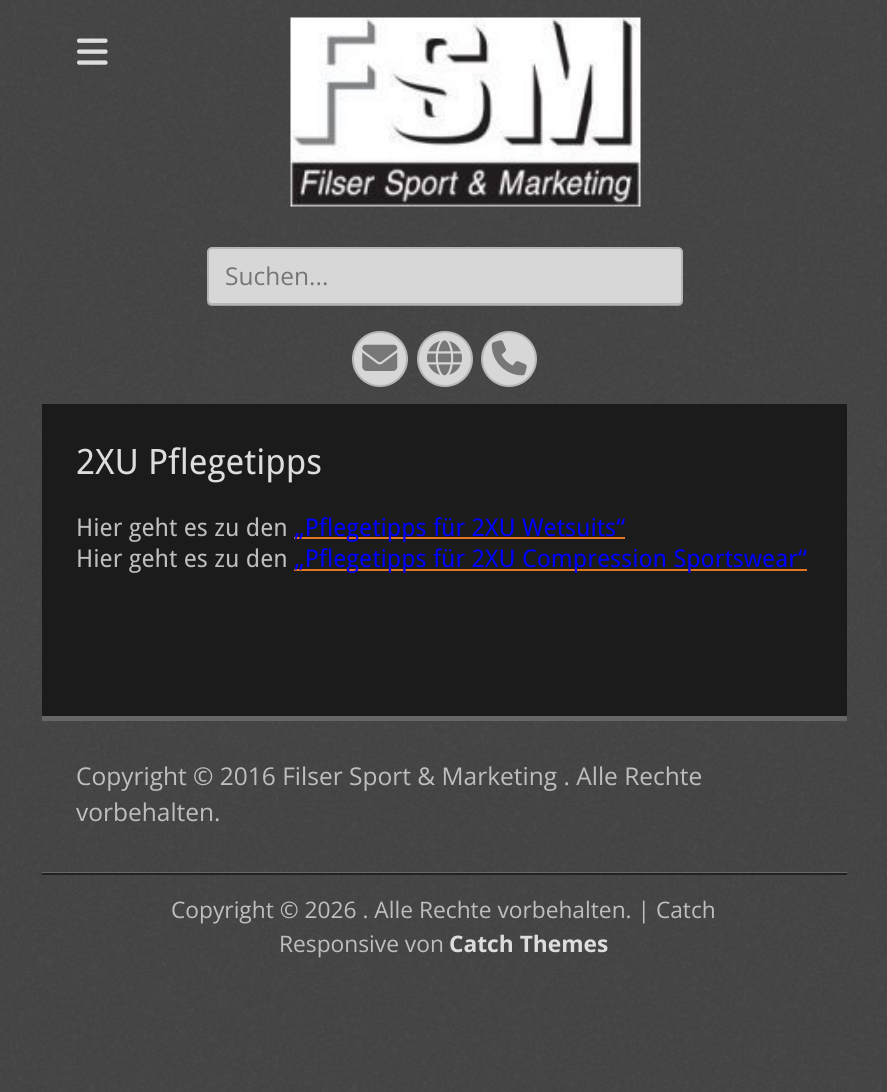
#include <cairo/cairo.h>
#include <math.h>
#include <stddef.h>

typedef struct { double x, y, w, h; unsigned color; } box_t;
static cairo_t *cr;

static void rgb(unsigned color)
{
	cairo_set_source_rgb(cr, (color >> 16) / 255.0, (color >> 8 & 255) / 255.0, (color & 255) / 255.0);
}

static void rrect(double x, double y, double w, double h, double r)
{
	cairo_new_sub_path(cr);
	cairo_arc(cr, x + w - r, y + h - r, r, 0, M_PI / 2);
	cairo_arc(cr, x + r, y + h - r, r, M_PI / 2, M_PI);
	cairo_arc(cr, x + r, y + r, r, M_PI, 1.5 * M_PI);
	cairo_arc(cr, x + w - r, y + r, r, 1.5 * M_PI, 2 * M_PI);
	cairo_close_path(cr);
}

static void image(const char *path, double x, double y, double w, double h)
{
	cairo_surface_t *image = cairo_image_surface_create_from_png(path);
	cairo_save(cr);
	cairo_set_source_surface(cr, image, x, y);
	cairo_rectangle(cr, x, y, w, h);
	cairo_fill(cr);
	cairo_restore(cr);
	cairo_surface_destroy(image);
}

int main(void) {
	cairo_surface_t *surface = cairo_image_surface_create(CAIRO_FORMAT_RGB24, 887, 1092);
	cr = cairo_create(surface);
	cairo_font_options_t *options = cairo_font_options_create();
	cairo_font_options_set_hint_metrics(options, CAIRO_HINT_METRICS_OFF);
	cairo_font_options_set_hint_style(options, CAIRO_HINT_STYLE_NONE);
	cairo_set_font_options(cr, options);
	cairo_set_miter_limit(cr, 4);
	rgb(0xffffff);
	cairo_paint(cr);
	image("img/1.png", 0, 0, 887, 1092);
	image("img/2.png", 77, 38, 31, 27);
	image("img/3.png", 290, 17, 351, 190);
	rgb(0x999999);
	cairo_new_path(cr);
	cairo_move_to(cr, 207, 302);
	cairo_curve_to(cr, 207, 304, 209, 306, 212, 306);
	cairo_line_to(cr, 678, 306);
	cairo_curve_to(cr, 681, 306, 683, 304, 683, 301);
	cairo_line_to(cr, 683, 254);
	cairo_line_to(cr, 682, 252);
	cairo_line_to(cr, 682, 299);
	cairo_curve_to(cr, 682, 302, 680, 304, 677, 304);
	cairo_line_to(cr, 212, 304);
	cairo_curve_to(cr, 210, 304, 208, 303, 207, 302);
	cairo_close_path(cr);
	cairo_fill(cr);
	rgb(0xd7d7d7);
	rrect(208, 248, 474, 56, 4);
	cairo_fill_preserve(cr);
	rgb(0xb6b6b6);
	cairo_stroke(cr);
	rgb(0xd7d7d7);
	cairo_arc(cr, 380, 359, 27, 0, 2 * M_PI);
	cairo_fill_preserve(cr);
	rgb(0xb6b6b6);
	cairo_stroke(cr);
	image("img/4.png", 362, 344, 36, 27);
	rgb(0xd7d7d7);
	cairo_arc(cr, 445, 359, 27, 0, 2 * M_PI);
	cairo_fill_preserve(cr);
	rgb(0xb6b6b6);
	cairo_stroke(cr);
	image("img/5.png", 427, 340, 35, 36);
	rgb(0xd7d7d7);
	cairo_arc(cr, 509, 359, 27, 0, 2 * M_PI);
	cairo_fill_preserve(cr);
	rgb(0xb6b6b6);
	cairo_stroke(cr);
	image("img/6.png", 491, 340, 36, 36);
	{
		static const box_t items[] = {
			{42, 404, 805, 312, 0x1b1b1b},
			{294, 537, 331, 2, 0xe4741f},
			{294, 569, 513, 2, 0xe4741f},
			{42, 716, 805, 5, 0x666666},
			{42, 872, 805, 1, 0x666666},
			{42, 873, 805, 2, 0x222222},
		};
		for (size_t i = 0; i < sizeof items / sizeof *items; i++) {
			rgb(items[i].color);
			cairo_rectangle(cr, items[i].x, items[i].y, items[i].w, items[i].h);
			cairo_fill(cr);
		}
	}
	cairo_select_font_face(cr, "Open Sans", CAIRO_FONT_SLANT_NORMAL, CAIRO_FONT_WEIGHT_NORMAL);
	cairo_set_font_size(cr, 24.5);
	rgb(0x757575);
	cairo_move_to(cr, 225, 285);
	cairo_show_text(cr, "Suchen...");
	cairo_select_font_face(cr, "Droid Sans", CAIRO_FONT_SLANT_NORMAL, CAIRO_FONT_WEIGHT_NORMAL);
	cairo_set_font_size(cr, 35);
	rgb(0xdddddd);
	cairo_move_to(cr, 76, 474);
	cairo_show_text(cr, "2XU Pflegetipps");
	cairo_set_font_size(cr, 24.5);
	rgb(0xbebebe);
	cairo_move_to(cr, 76, 536);
	cairo_show_text(cr, "Hier geht es zu den");
	rgb(0x0000ff);
	cairo_move_to(cr, 294, 536);
	cairo_show_text(cr, "„Pflegetipps für 2XU Wetsuits“");
	rgb(0xbebebe);
	cairo_move_to(cr, 76, 567);
	cairo_show_text(cr, "Hier geht es zu den");
	rgb(0x0000ff);
	cairo_move_to(cr, 294, 567);
	cairo_show_text(cr, "„Pflegetipps für 2XU Compression Sportswear“");
	cairo_select_font_face(cr, "Open Sans", CAIRO_FONT_SLANT_NORMAL, CAIRO_FONT_WEIGHT_NORMAL);
	rgb(0xbebebe);
	cairo_move_to(cr, 76, 785);
	cairo_show_text(cr, "Copyright © 2016 Filser Sport & Marketing . Alle Rechte");
	cairo_move_to(cr, 76, 821);
	cairo_show_text(cr, "vorbehalten.");
	cairo_set_font_size(cr, 22.75);
	cairo_move_to(cr, 171, 918);
	cairo_show_text(cr, "Copyright © 2026 . Alle Rechte vorbehalten. | Catch");
	cairo_move_to(cr, 279, 952);
	cairo_show_text(cr, "Responsive von");
	cairo_select_font_face(cr, "Open Sans", CAIRO_FONT_SLANT_NORMAL, CAIRO_FONT_WEIGHT_BOLD);
	rgb(0xdddddd);
	cairo_move_to(cr, 449, 952);
	cairo_show_text(cr, "Catch Themes");
	cairo_surface_write_to_png(surface, "page.png");
	cairo_font_options_destroy(options);
	cairo_destroy(cr);
	cairo_surface_destroy(surface);
	return 0;
}
